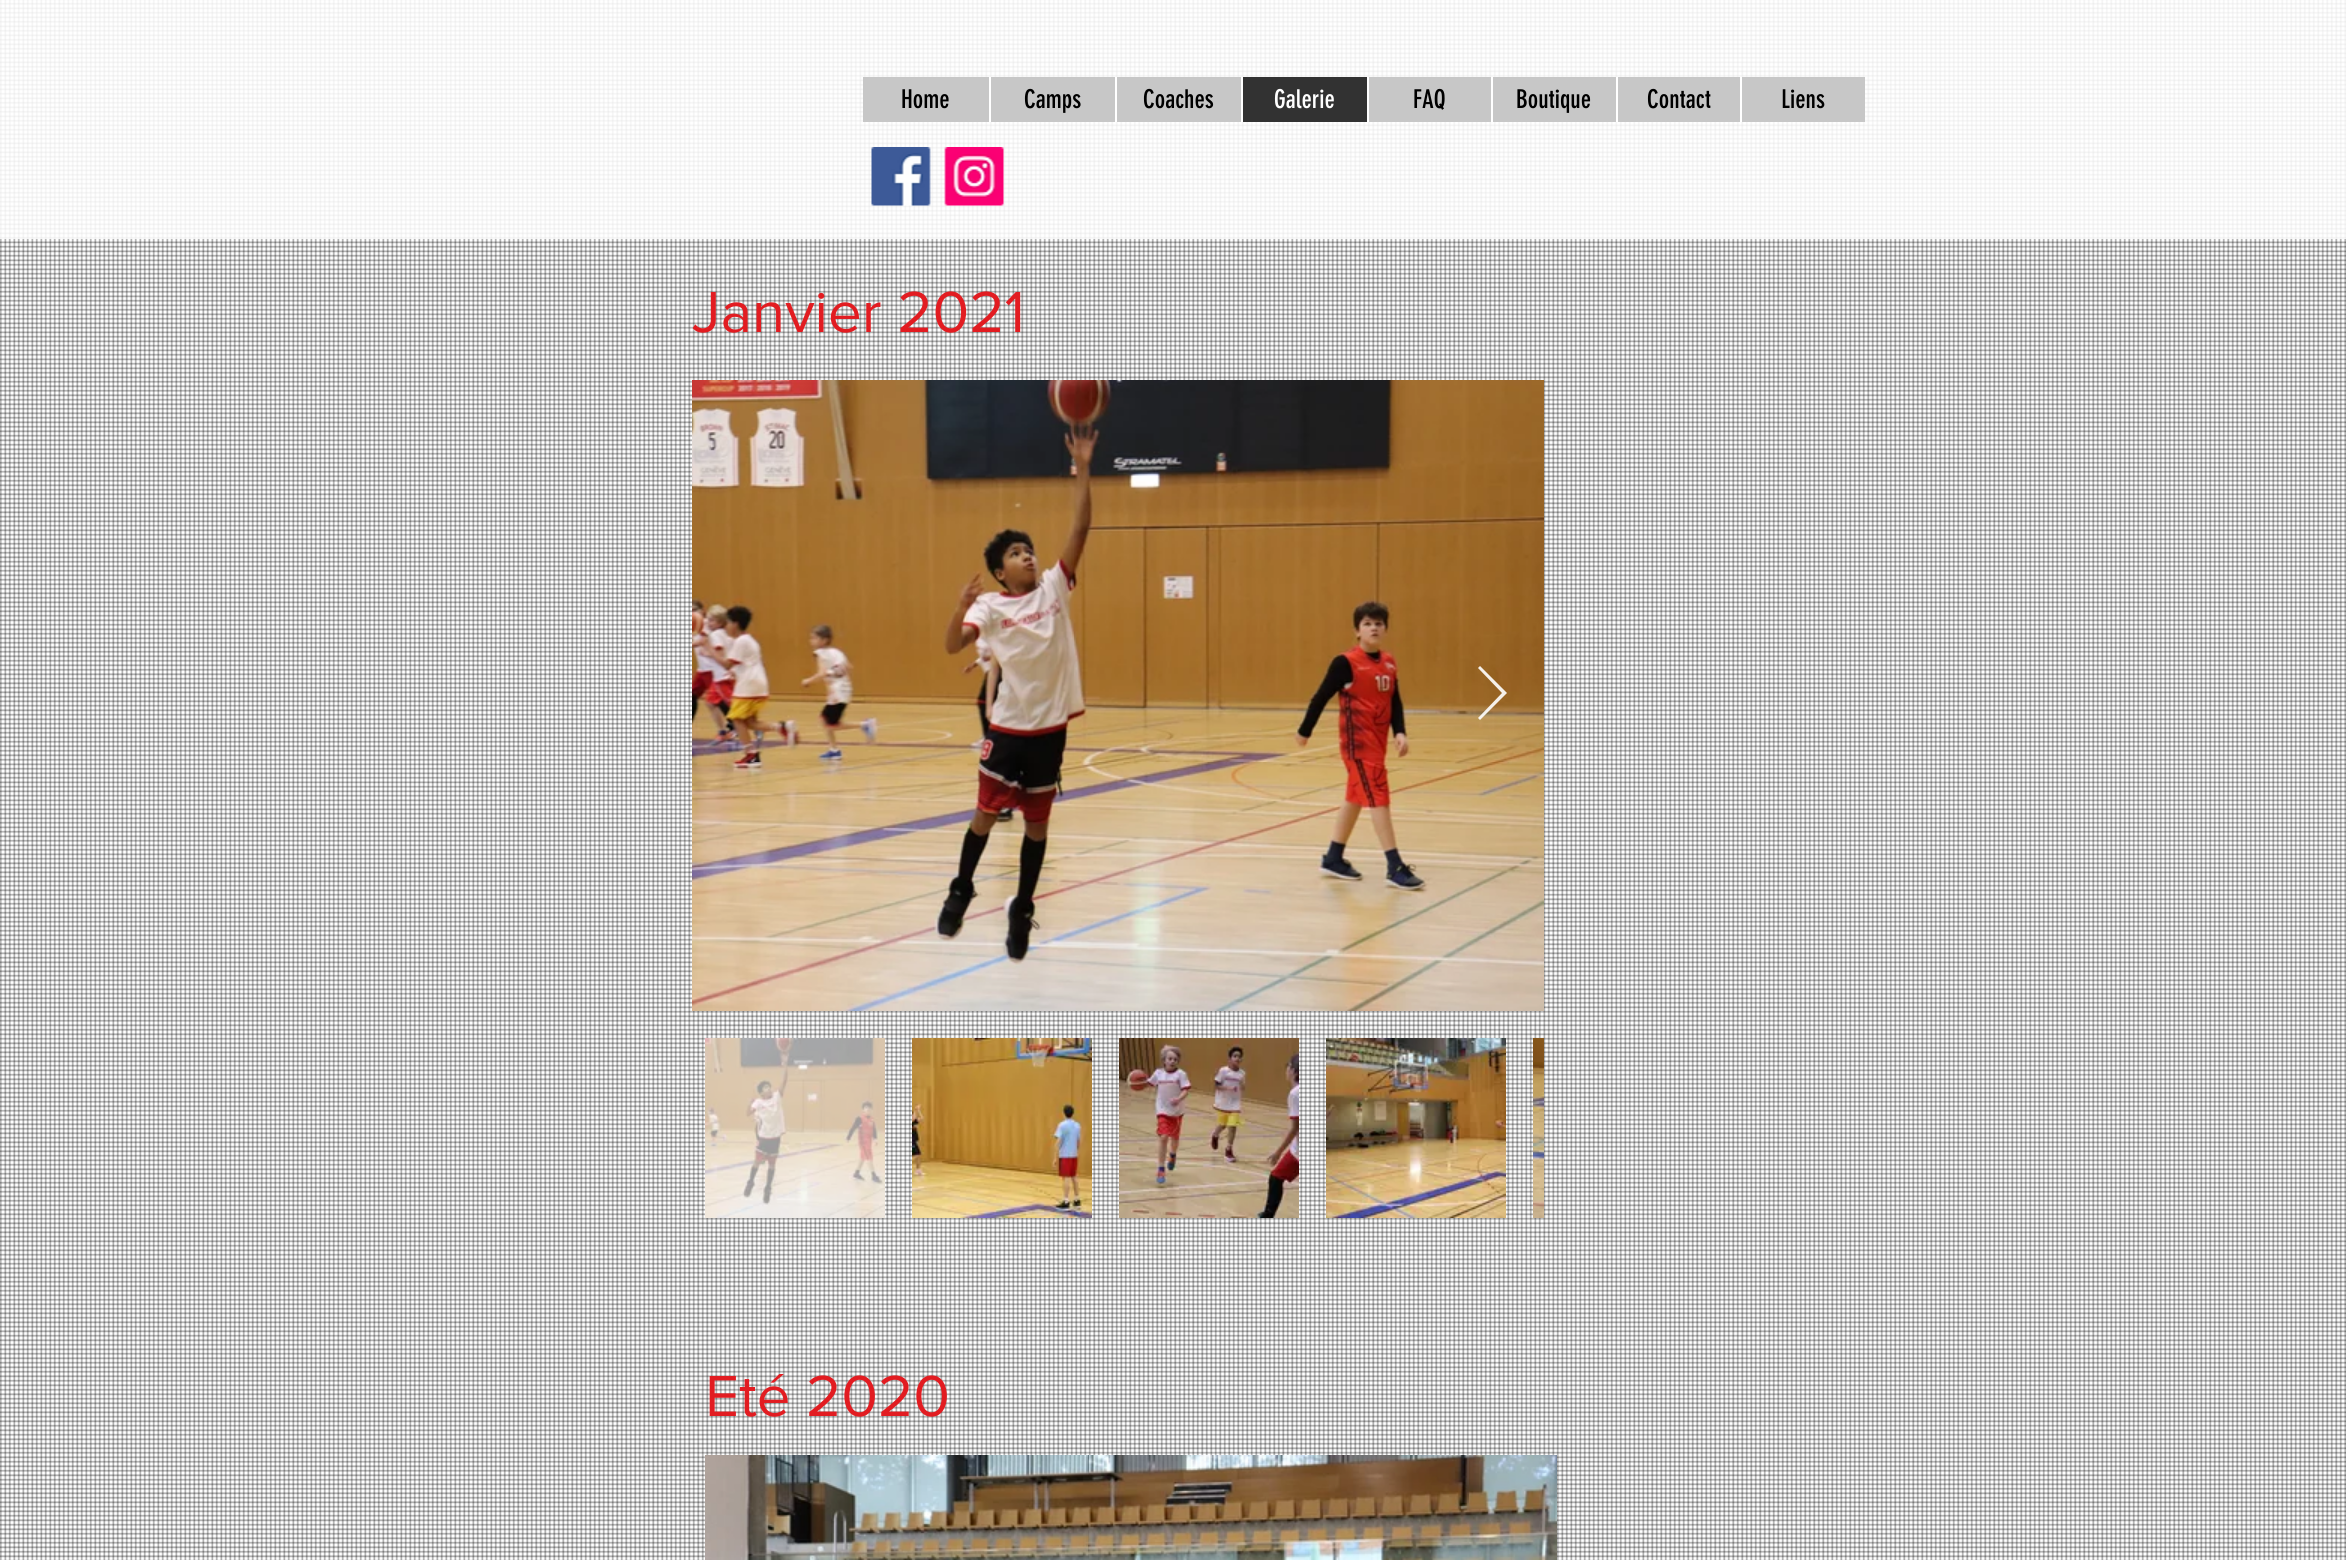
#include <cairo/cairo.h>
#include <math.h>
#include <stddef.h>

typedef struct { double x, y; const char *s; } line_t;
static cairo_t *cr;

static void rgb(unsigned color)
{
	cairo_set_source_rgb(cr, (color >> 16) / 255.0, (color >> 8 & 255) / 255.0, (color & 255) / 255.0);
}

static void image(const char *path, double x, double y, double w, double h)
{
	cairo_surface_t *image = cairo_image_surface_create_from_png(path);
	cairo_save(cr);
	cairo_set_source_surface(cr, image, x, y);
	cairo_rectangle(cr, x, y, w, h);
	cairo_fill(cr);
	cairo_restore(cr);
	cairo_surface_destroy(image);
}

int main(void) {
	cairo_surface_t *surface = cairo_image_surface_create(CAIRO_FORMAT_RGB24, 2346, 1560);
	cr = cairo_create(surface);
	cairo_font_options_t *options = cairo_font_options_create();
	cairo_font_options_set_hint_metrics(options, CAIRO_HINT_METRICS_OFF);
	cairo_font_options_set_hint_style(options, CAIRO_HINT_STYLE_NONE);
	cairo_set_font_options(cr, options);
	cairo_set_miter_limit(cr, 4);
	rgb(0xffffff);
	cairo_paint(cr);
	image("img/1.png", 0, 0, 2346, 1560);
	cairo_set_source_rgba(cr, 1, 1, 1, 0.87);
	cairo_rectangle(cr, 0, 0, 2346, 239);
	cairo_fill(cr);
	rgb(0xc7c7c7);
	cairo_rectangle(cr, 863, 77, 1002, 45);
	cairo_fill(cr);
	rgb(0xffffff);
	cairo_rectangle(cr, 989, 77, 2, 45);
	cairo_fill(cr);
	cairo_rectangle(cr, 1115, 77, 2, 45);
	cairo_fill(cr);
	rgb(0x323232);
	cairo_rectangle(cr, 1243, 77, 124, 45);
	cairo_fill(cr);
	rgb(0xffffff);
	cairo_rectangle(cr, 1241, 77, 2, 45);
	cairo_fill(cr);
	cairo_rectangle(cr, 1367, 77, 2, 45);
	cairo_fill(cr);
	cairo_rectangle(cr, 1491, 77, 2, 45);
	cairo_fill(cr);
	cairo_rectangle(cr, 1616, 77, 2, 45);
	cairo_fill(cr);
	cairo_rectangle(cr, 1740, 77, 2, 45);
	cairo_fill(cr);
	image("img/2.png", 871, 147, 60, 59);
	image("img/3.png", 944, 147, 60, 59);
	image("img/4.png", 692, 380, 852, 631);
	cairo_set_source_rgba(cr, 1, 1, 1, 0.9);
	cairo_new_path(cr);
	cairo_move_to(cr, 1478, 668);
	cairo_line_to(cr, 1480, 666);
	cairo_line_to(cr, 1507, 693);
	cairo_line_to(cr, 1480, 720);
	cairo_line_to(cr, 1478, 718);
	cairo_line_to(cr, 1502, 693);
	cairo_close_path(cr);
	cairo_fill(cr);
	image("img/5.png", 705, 1038, 180, 180);
	image("img/6.png", 912, 1038, 180, 180);
	image("img/7.png", 1119, 1038, 180, 180);
	image("img/8.png", 1326, 1038, 180, 180);
	image("img/9.png", 1533, 1038, 11, 180);
	image("img/10.png", 705, 1455, 852, 105);
	cairo_select_font_face(cr, "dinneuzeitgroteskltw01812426", CAIRO_FONT_SLANT_NORMAL, CAIRO_FONT_WEIGHT_NORMAL);
	cairo_set_font_size(cr, 25.5);
	rgb(0x000000);
	{
		static const line_t items[] = {
			{901, 108, "Home"},
			{1024, 108, "Camps"},
			{1143, 108, "Coaches"},
		};
		for (size_t i = 0; i < sizeof items / sizeof *items; i++) {
			cairo_move_to(cr, items[i].x, items[i].y);
			cairo_show_text(cr, items[i].s);
		}
	}
	rgb(0xffffff);
	cairo_move_to(cr, 1274, 108);
	cairo_show_text(cr, "Galerie");
	rgb(0x000000);
	{
		static const line_t items[] = {
			{1413, 108, "FAQ"},
			{1516, 108, "Boutique"},
			{1647, 108, "Contact"},
			{1781, 108, "Liens"},
		};
		for (size_t i = 0; i < sizeof items / sizeof *items; i++) {
			cairo_move_to(cr, items[i].x, items[i].y);
			cairo_show_text(cr, items[i].s);
		}
	}
	cairo_select_font_face(cr, "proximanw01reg", CAIRO_FONT_SLANT_NORMAL, CAIRO_FONT_WEIGHT_NORMAL);
	cairo_set_font_size(cr, 60);
	rgb(0xe21c21);
	cairo_move_to(cr, 692, 332);
	cairo_show_text(cr, "Janvier 2021");
	cairo_move_to(cr, 705, 1416);
	cairo_show_text(cr, "Eté 2020");
	cairo_surface_write_to_png(surface, "page.png");
	cairo_font_options_destroy(options);
	cairo_destroy(cr);
	cairo_surface_destroy(surface);
	return 0;
}
